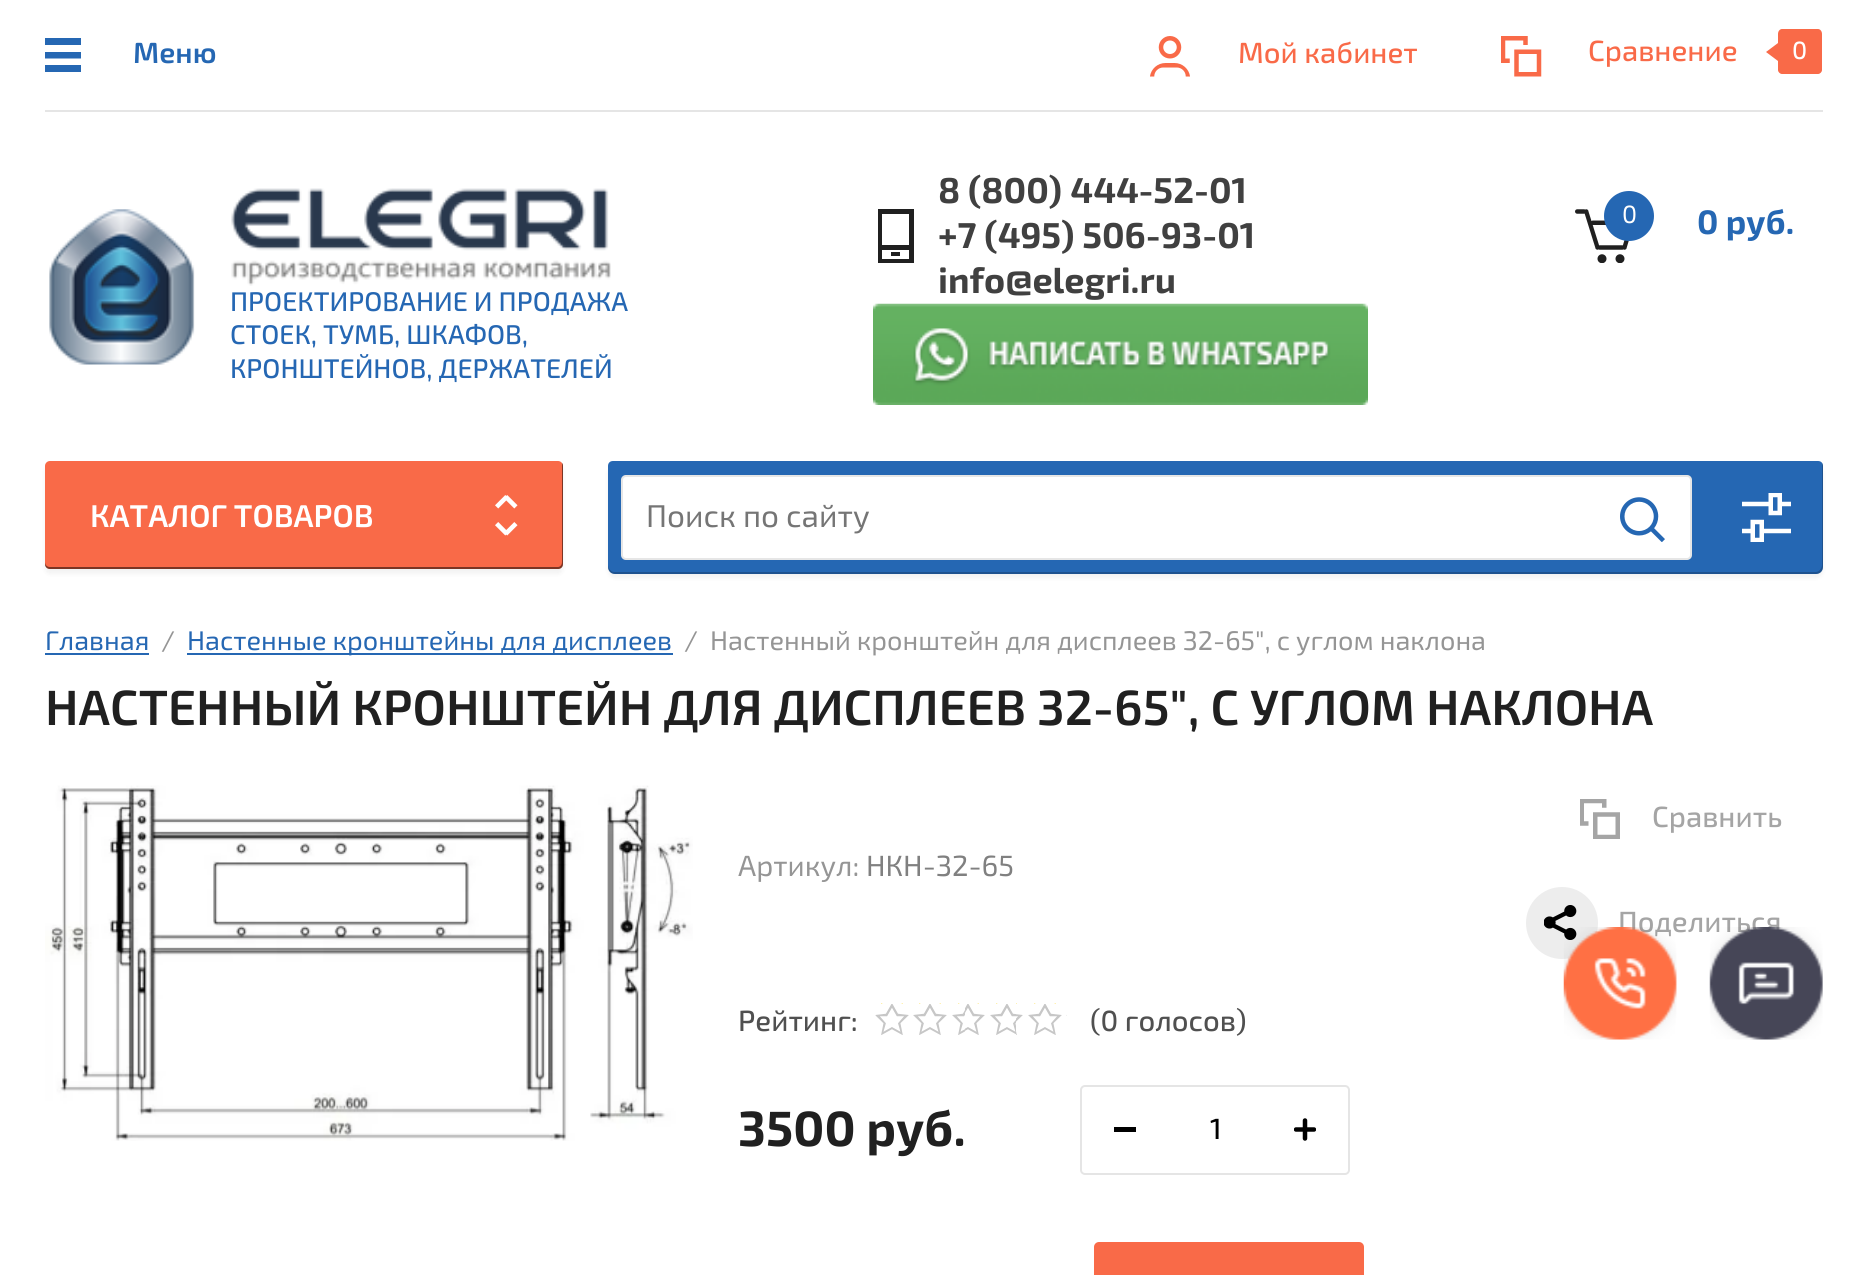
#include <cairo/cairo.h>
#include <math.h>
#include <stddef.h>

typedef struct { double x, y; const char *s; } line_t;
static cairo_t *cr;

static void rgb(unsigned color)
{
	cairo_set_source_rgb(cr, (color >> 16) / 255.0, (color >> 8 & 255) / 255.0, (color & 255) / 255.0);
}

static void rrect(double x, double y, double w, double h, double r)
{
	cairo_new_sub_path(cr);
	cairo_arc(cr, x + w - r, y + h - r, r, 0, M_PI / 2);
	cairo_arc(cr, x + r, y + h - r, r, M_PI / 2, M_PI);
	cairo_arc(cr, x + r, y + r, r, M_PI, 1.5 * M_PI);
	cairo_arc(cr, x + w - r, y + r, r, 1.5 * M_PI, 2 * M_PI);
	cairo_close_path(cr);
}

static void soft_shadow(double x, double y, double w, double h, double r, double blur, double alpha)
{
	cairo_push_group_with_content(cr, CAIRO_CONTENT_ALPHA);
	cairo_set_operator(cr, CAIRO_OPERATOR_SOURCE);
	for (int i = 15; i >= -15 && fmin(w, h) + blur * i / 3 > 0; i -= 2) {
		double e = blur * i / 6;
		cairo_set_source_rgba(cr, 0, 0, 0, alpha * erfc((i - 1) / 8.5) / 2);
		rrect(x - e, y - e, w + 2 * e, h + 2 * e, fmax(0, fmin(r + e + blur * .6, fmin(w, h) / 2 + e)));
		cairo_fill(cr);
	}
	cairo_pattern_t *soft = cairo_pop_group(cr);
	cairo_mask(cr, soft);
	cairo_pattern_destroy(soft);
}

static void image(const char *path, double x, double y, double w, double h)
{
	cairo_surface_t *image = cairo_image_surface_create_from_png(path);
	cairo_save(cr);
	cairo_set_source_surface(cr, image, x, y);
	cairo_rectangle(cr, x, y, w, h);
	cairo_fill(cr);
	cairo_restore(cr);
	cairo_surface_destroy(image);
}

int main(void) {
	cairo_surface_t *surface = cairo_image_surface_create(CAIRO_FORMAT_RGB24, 1867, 1275);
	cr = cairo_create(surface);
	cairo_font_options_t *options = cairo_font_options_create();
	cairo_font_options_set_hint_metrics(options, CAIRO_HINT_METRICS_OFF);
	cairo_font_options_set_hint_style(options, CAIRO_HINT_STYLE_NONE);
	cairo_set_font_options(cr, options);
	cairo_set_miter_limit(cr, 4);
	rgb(0xffffff);
	cairo_paint(cr);
	rgb(0xe5e5e5);
	cairo_rectangle(cr, 45, 110, 1778, 2);
	cairo_fill(cr);
	rgb(0x2567b3);
	cairo_new_path(cr);
	cairo_move_to(cr, 45, 72);
	cairo_line_to(cr, 45, 65);
	cairo_line_to(cr, 81, 65);
	cairo_line_to(cr, 81, 72);
	cairo_close_path(cr);
	cairo_move_to(cr, 45, 52);
	cairo_line_to(cr, 81, 52);
	cairo_line_to(cr, 81, 58.5);
	cairo_line_to(cr, 45, 58.5);
	cairo_close_path(cr);
	cairo_move_to(cr, 45, 38);
	cairo_line_to(cr, 81, 38);
	cairo_line_to(cr, 81, 45);
	cairo_line_to(cr, 45, 45);
	cairo_close_path(cr);
	cairo_fill(cr);
	image("img/1.png", 1150, 36, 40, 41);
	image("img/2.png", 1501, 36, 41, 41);
	rgb(0xf96a48);
	cairo_new_path(cr);
	cairo_move_to(cr, 1818, 74);
	cairo_line_to(cr, 1782, 74);
	cairo_curve_to(cr, 1780, 74, 1778, 72, 1778, 70);
	cairo_line_to(cr, 1778, 34);
	cairo_curve_to(cr, 1778, 31, 1780, 29, 1782, 29);
	cairo_line_to(cr, 1818, 29);
	cairo_curve_to(cr, 1820, 29, 1822, 31, 1822, 34);
	cairo_line_to(cr, 1822, 70);
	cairo_curve_to(cr, 1822, 72, 1820, 74, 1818, 74);
	cairo_close_path(cr);
	cairo_move_to(cr, 1778, 43);
	cairo_line_to(cr, 1778, 61);
	cairo_line_to(cr, 1766, 52);
	cairo_close_path(cr);
	cairo_fill(cr);
	rgb(0x202020);
	cairo_new_path(cr);
	cairo_move_to(cr, 878, 263);
	cairo_line_to(cr, 878, 209);
	cairo_line_to(cr, 914, 209);
	cairo_line_to(cr, 914, 263);
	cairo_close_path(cr);
	cairo_move_to(cr, 909, 214);
	cairo_line_to(cr, 882, 214);
	cairo_line_to(cr, 882, 245);
	cairo_line_to(cr, 909, 245);
	cairo_close_path(cr);
	cairo_move_to(cr, 909, 250);
	cairo_line_to(cr, 882, 250);
	cairo_line_to(cr, 882, 259);
	cairo_line_to(cr, 909, 259);
	cairo_close_path(cr);
	cairo_move_to(cr, 900, 256);
	cairo_line_to(cr, 891, 256);
	cairo_line_to(cr, 891, 252);
	cairo_line_to(cr, 900, 252);
	cairo_close_path(cr);
	cairo_fill(cr);
	image("img/3.png", 873, 303, 495, 102);
	image("img/4.png", 1575, 209, 54, 54);
	rgb(0x2567b3);
	cairo_arc(cr, 1629, 216, 25, 0, 2 * M_PI);
	cairo_fill(cr);
	image("img/5.png", 49, 209, 146, 156);
	image("img/6.png", 231, 188, 380, 98);
	rgb(0x000000);
	soft_shadow(45, 466, 518, 108, 5, 2, 0.05);
	rgb(0xf96a48);
	rrect(45, 461, 518, 108, 5);
	cairo_fill(cr);
	image("img/7.png", 495, 495, 23, 41);
	cairo_set_source_rgba(cr, 0, 0, 0, 0.5);
	cairo_new_path(cr);
	cairo_move_to(cr, 45, 562);
	cairo_line_to(cr, 45, 564);
	cairo_curve_to(cr, 45, 567, 47, 569, 50, 569);
	cairo_line_to(cr, 558, 569);
	cairo_curve_to(cr, 561, 569, 563, 567, 563, 564);
	cairo_line_to(cr, 563, 466);
	cairo_curve_to(cr, 563, 465, 563, 464, 562, 463);
	cairo_line_to(cr, 562, 562);
	cairo_curve_to(cr, 562, 565, 560, 567, 558, 567);
	cairo_line_to(cr, 50, 567);
	cairo_curve_to(cr, 47, 567, 45, 565, 45, 562);
	cairo_close_path(cr);
	cairo_fill(cr);
	rgb(0x000000);
	soft_shadow(608, 466, 1215, 112, 7, 2, 0.05);
	rgb(0x2567b3);
	cairo_new_path(cr);
	cairo_move_to(cr, 613, 461);
	cairo_line_to(cr, 1818, 461);
	cairo_curve_to(cr, 1821, 461, 1823, 463, 1823, 466);
	cairo_line_to(cr, 1823, 567);
	cairo_curve_to(cr, 1823, 571, 1820, 574, 1816, 574);
	cairo_line_to(cr, 615, 574);
	cairo_curve_to(cr, 611, 574, 608, 571, 608, 567);
	cairo_line_to(cr, 608, 466);
	cairo_curve_to(cr, 608, 463, 610, 461, 613, 461);
	cairo_close_path(cr);
	cairo_fill(cr);
	cairo_set_source_rgba(cr, 0, 0, 0, 0.2);
	cairo_new_path(cr);
	cairo_move_to(cr, 608, 565);
	cairo_line_to(cr, 608, 567);
	cairo_curve_to(cr, 608, 571, 611, 574, 615, 574);
	cairo_line_to(cr, 1816, 574);
	cairo_curve_to(cr, 1820, 574, 1823, 571, 1823, 567);
	cairo_line_to(cr, 1823, 466);
	cairo_curve_to(cr, 1823, 465, 1823, 464, 1822, 463);
	cairo_line_to(cr, 1822, 565);
	cairo_curve_to(cr, 1822, 568, 1819, 572, 1816, 572);
	cairo_line_to(cr, 614, 572);
	cairo_curve_to(cr, 611, 572, 608, 568, 608, 565);
	cairo_close_path(cr);
	cairo_fill(cr);
	rgb(0xffffff);
	rrect(621, 475, 1071, 85, 5);
	cairo_fill(cr);
	rrect(622, 476, 1069, 83, 4);
	cairo_set_source_rgba(cr, 0, 0, 0, 0.1);
	cairo_stroke(cr);
	image("img/8.png", 1620, 497, 45, 45);
	image("img/9.png", 1742, 493, 49, 49);
	rgb(0x2567b3);
	cairo_rectangle(cr, 45, 653, 104, 2);
	cairo_fill(cr);
	cairo_rectangle(cr, 187, 653, 486, 2);
	cairo_fill(cr);
	image("img/10.png", 45, 785, 648, 356);
	image("img/11.png", 1580, 799, 40, 40);
	rgb(0xededed);
	cairo_arc(cr, 1562, 923, 36, 0, 2 * M_PI);
	cairo_fill(cr);
	image("img/12.png", 1544, 905, 33, 35);
	image("img/13.png", 875, 1003, 192, 32);
	rrect(1081, 1086, 268, 88, 4);
	rgb(0xe5e5e5);
	cairo_stroke(cr);
	rgb(0x000000);
	cairo_rectangle(cr, 1114, 1127, 22, 5);
	cairo_fill(cr);
	image("img/14.png", 1294, 1118, 22, 23);
	rgb(0xf96a48);
	rrect(1094, 1242, 270, 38, 5);
	cairo_fill(cr);
	cairo_select_font_face(cr, "Exo 2 SemiBold", CAIRO_FONT_SLANT_NORMAL, CAIRO_FONT_WEIGHT_NORMAL);
	cairo_set_font_size(cr, 29.25);
	rgb(0x2567b3);
	cairo_move_to(cr, 133, 63);
	cairo_show_text(cr, "Меню");
	cairo_select_font_face(cr, "Exo 2 Medium", CAIRO_FONT_SLANT_NORMAL, CAIRO_FONT_WEIGHT_NORMAL);
	rgb(0xf96a48);
	cairo_move_to(cr, 1238, 63);
	cairo_show_text(cr, "Мой кабинет");
	cairo_move_to(cr, 1588, 61);
	cairo_show_text(cr, "Сравнение");
	cairo_set_font_size(cr, 25);
	rgb(0xffffff);
	cairo_move_to(cr, 1792, 59);
	cairo_show_text(cr, "0");
	cairo_select_font_face(cr, "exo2", CAIRO_FONT_SLANT_NORMAL, CAIRO_FONT_WEIGHT_BOLD);
	cairo_set_font_size(cr, 36);
	rgb(0x404040);
	{
		static const line_t items[] = {
			{938, 203, "8 (800) 444-52-01"},
			{938, 248, "+7 (495) 506-93-01"},
			{938, 293, "info@elegri.ru"},
		};
		for (size_t i = 0; i < sizeof items / sizeof *items; i++) {
			cairo_move_to(cr, items[i].x, items[i].y);
			cairo_show_text(cr, items[i].s);
		}
	}
	cairo_select_font_face(cr, "exo2", CAIRO_FONT_SLANT_NORMAL, CAIRO_FONT_WEIGHT_NORMAL);
	cairo_set_font_size(cr, 25);
	rgb(0xffffff);
	cairo_move_to(cr, 1622, 223);
	cairo_show_text(cr, "0");
	cairo_select_font_face(cr, "exo2", CAIRO_FONT_SLANT_NORMAL, CAIRO_FONT_WEIGHT_BOLD);
	cairo_set_font_size(cr, 34);
	rgb(0x2567b3);
	cairo_move_to(cr, 1697, 234);
	cairo_show_text(cr, "0 руб.");
	cairo_select_font_face(cr, "Exo 2 Medium", CAIRO_FONT_SLANT_NORMAL, CAIRO_FONT_WEIGHT_NORMAL);
	cairo_set_font_size(cr, 27);
	{
		static const line_t items[] = {
			{230, 311, "ПРОЕКТИРОВАНИЕ И ПРОДАЖА"},
			{230, 344, "СТОЕК, ТУМБ, ШКАФОВ,"},
			{230, 378, "КРОНШТЕЙНОВ, ДЕРЖАТЕЛЕЙ"},
		};
		for (size_t i = 0; i < sizeof items / sizeof *items; i++) {
			cairo_move_to(cr, items[i].x, items[i].y);
			cairo_show_text(cr, items[i].s);
		}
	}
	cairo_select_font_face(cr, "Exo 2 SemiBold", CAIRO_FONT_SLANT_NORMAL, CAIRO_FONT_WEIGHT_NORMAL);
	cairo_set_font_size(cr, 31.5);
	rgb(0xffffff);
	cairo_move_to(cr, 90, 527);
	cairo_show_text(cr, "КАТАЛОГ ТОВАРОВ");
	cairo_select_font_face(cr, "exo2", CAIRO_FONT_SLANT_NORMAL, CAIRO_FONT_WEIGHT_NORMAL);
	rgb(0x757575);
	cairo_move_to(cr, 646, 527);
	cairo_show_text(cr, "Поиск по сайту");
	cairo_set_font_size(cr, 27);
	rgb(0x2567b3);
	cairo_move_to(cr, 45, 650);
	cairo_show_text(cr, "Главная");
	rgb(0x959595);
	cairo_move_to(cr, 161, 650);
	cairo_show_text(cr, "/");
	rgb(0x2567b3);
	cairo_move_to(cr, 187, 650);
	cairo_show_text(cr, "Настенные кронштейны для дисплеев");
	rgb(0x959595);
	cairo_move_to(cr, 684, 650);
	cairo_show_text(cr, "/  Настенный кронштейн для дисплеев 32-65\", с углом наклона");
	cairo_select_font_face(cr, "Exo 2 SemiBold", CAIRO_FONT_SLANT_NORMAL, CAIRO_FONT_WEIGHT_NORMAL);
	cairo_set_font_size(cr, 49.5);
	rgb(0x202020);
	cairo_move_to(cr, 45, 725);
	cairo_show_text(cr, "НАСТЕННЫЙ КРОНШТЕЙН ДЛЯ ДИСПЛЕЕВ 32-65\", С УГЛОМ НАКЛОНА");
	cairo_select_font_face(cr, "exo2", CAIRO_FONT_SLANT_NORMAL, CAIRO_FONT_WEIGHT_NORMAL);
	cairo_set_font_size(cr, 29.25);
	rgb(0x959595);
	cairo_move_to(cr, 738, 876);
	cairo_show_text(cr, "Артикул:");
	rgb(0x808080);
	cairo_move_to(cr, 866, 876);
	cairo_show_text(cr, "НКН-32-65");
	cairo_select_font_face(cr, "Exo 2 Medium", CAIRO_FONT_SLANT_NORMAL, CAIRO_FONT_WEIGHT_NORMAL);
	rgb(0xa5a5a5);
	cairo_move_to(cr, 1652, 827);
	cairo_show_text(cr, "Сравнить");
	cairo_move_to(cr, 1618, 932);
	cairo_show_text(cr, "Поделиться");
	rgb(0x505050);
	cairo_move_to(cr, 738, 1031);
	cairo_show_text(cr, "Рейтинг:");
	cairo_move_to(cr, 1090, 1031);
	cairo_show_text(cr, "(0 голосов)");
	cairo_select_font_face(cr, "exo2", CAIRO_FONT_SLANT_NORMAL, CAIRO_FONT_WEIGHT_BOLD);
	cairo_set_font_size(cr, 49.5);
	rgb(0x202020);
	cairo_move_to(cr, 738, 1146);
	cairo_show_text(cr, "3500 руб.");
	cairo_select_font_face(cr, "Exo 2 Medium", CAIRO_FONT_SLANT_NORMAL, CAIRO_FONT_WEIGHT_NORMAL);
	cairo_set_font_size(cr, 29.25);
	rgb(0x000000);
	cairo_move_to(cr, 1210, 1139);
	cairo_show_text(cr, "1");
	image("img/15.png", 1563, 927, 114, 113);
	image("img/16.png", 1709, 927, 114, 113);
	cairo_surface_write_to_png(surface, "page.png");
	cairo_font_options_destroy(options);
	cairo_destroy(cr);
	cairo_surface_destroy(surface);
	return 0;
}
